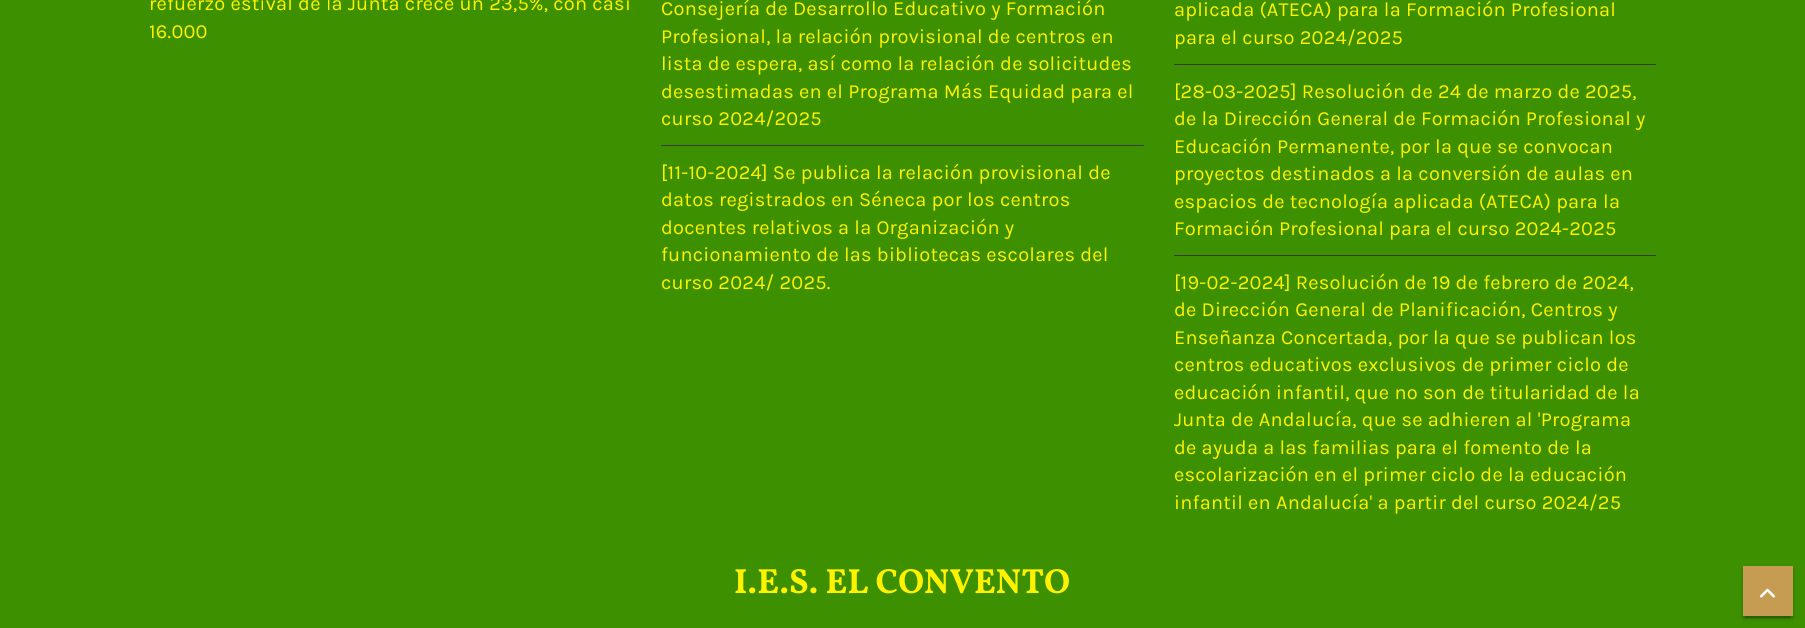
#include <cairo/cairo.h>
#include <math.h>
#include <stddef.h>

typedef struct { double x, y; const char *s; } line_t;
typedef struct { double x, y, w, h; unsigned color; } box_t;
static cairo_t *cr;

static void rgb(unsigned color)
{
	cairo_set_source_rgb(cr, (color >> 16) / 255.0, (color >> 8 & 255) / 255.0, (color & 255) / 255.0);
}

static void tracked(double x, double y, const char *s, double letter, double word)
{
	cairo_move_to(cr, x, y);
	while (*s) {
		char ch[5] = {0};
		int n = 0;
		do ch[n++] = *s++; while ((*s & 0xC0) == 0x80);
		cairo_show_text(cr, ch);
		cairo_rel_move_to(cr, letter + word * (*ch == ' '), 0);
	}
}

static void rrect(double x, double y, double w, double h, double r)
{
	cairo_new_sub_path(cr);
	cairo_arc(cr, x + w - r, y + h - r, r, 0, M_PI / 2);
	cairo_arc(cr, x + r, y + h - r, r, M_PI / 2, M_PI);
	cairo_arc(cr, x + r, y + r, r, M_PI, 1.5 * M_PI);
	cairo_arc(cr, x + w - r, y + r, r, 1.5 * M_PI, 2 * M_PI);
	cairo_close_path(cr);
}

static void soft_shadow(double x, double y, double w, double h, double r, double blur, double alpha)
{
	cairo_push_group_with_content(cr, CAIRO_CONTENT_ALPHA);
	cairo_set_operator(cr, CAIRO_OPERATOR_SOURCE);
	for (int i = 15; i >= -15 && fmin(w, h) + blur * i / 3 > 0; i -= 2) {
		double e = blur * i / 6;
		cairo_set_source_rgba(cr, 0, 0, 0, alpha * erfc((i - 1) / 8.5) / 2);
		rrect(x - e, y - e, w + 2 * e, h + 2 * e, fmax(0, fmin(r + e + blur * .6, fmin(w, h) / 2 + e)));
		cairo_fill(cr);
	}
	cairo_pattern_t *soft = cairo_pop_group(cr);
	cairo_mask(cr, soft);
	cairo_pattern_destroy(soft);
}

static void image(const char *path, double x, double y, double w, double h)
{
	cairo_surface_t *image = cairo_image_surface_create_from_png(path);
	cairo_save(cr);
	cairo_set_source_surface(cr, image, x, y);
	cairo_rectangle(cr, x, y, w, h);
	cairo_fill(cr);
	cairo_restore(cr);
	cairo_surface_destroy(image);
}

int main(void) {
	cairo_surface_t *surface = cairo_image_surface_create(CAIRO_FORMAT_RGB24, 1805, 628);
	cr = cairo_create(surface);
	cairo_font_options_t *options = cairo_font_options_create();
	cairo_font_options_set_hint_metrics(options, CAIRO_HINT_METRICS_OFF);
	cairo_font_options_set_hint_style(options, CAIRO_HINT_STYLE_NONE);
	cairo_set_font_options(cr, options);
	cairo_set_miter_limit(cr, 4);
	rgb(0x3d9101);
	cairo_paint(cr);
	{
		static const box_t items[] = {
			{661, 145, 483, 1, 0x3a3a3a},
			{1174, 64, 482, 1, 0x3a3a3a},
			{1174, 255, 482, 1, 0x3a3a3a},
		};
		for (size_t i = 0; i < sizeof items / sizeof *items; i++) {
			rgb(items[i].color);
			cairo_rectangle(cr, items[i].x, items[i].y, items[i].w, items[i].h);
			cairo_fill(cr);
		}
	}
	rgb(0x000000);
	soft_shadow(1743, 568, 50, 50, 0, 3, 0.12);
	soft_shadow(1745, 573, 45, 45, 0, 0.5, 0.2);
	soft_shadow(1743, 569, 50, 50, 0, 1, 0.14);
	rgb(0xc69c53);
	cairo_rectangle(cr, 1743, 566, 50, 50);
	cairo_fill(cr);
	image("img/1.png", 1760, 588, 15, 10);
	cairo_select_font_face(cr, "Karla", CAIRO_FONT_SLANT_NORMAL, CAIRO_FONT_WEIGHT_NORMAL);
	cairo_set_font_size(cr, 20);
	rgb(0xfff200);
	{
		static const line_t items[] = {
			{149, 10, "refuerzo estival de la Junta crece un 23,5%, con casi"},
			{149, 38, "16.000"},
			{661, 15, "Consejería de Desarrollo Educativo y Formación"},
			{661, 43, "Profesional, la relación provisional de centros en"},
			{661, 70, "lista de espera, así como la relación de solicitudes"},
			{661, 98, "desestimadas en el Programa Más Equidad para el"},
			{661, 125, "curso 2024/2025"},
			{661, 179, "[11-10-2024] Se publica la relación provisional de"},
			{661, 206, "datos registrados en Séneca por los centros"},
			{661, 234, "docentes relativos a la Organización y"},
			{661, 261, "funcionamiento de las bibliotecas escolares del"},
			{661, 289, "curso 2024/ 2025."},
			{1174, 16, "aplicada (ATECA) para la Formación Profesional"},
			{1174, 44, "para el curso 2024/2025"},
			{1174, 98, "[28-03-2025] Resolución de 24 de marzo de 2025,"},
			{1174, 125, "de la Dirección General de Formación Profesional y"},
			{1174, 153, "Educación Permanente, por la que se convocan"},
			{1174, 180, "proyectos destinados a la conversión de aulas en"},
			{1174, 208, "espacios de tecnología aplicada (ATECA) para la"},
			{1174, 235, "Formación Profesional para el curso 2024-2025"},
			{1174, 289, "[19-02-2024] Resolución de 19 de febrero de 2024,"},
			{1174, 316, "de Dirección General de Planificación, Centros y"},
			{1174, 344, "Enseñanza Concertada, por la que se publican los"},
			{1174, 371, "centros educativos exclusivos de primer ciclo de"},
			{1174, 399, "educación infantil, que no son de titularidad de la"},
			{1174, 426, "Junta de Andalucía, que se adhieren al 'Programa"},
			{1174, 454, "de ayuda a las familias para el fomento de la"},
			{1174, 481, "escolarización en el primer ciclo de la educación"},
			{1174, 509, "infantil en Andalucía' a partir del curso 2024/25"},
		};
		for (size_t i = 0; i < sizeof items / sizeof *items; i++) {
			tracked(items[i].x, items[i].y, items[i].s, 0.25, 0);
		}
	}
	cairo_select_font_face(cr, "Vollkorn", CAIRO_FONT_SLANT_NORMAL, CAIRO_FONT_WEIGHT_BOLD);
	cairo_set_font_size(cr, 35);
	cairo_move_to(cr, 734, 593);
	cairo_show_text(cr, "I.E.S. EL CONVENTO");
	cairo_surface_write_to_png(surface, "page.png");
	cairo_font_options_destroy(options);
	cairo_destroy(cr);
	cairo_surface_destroy(surface);
	return 0;
}
